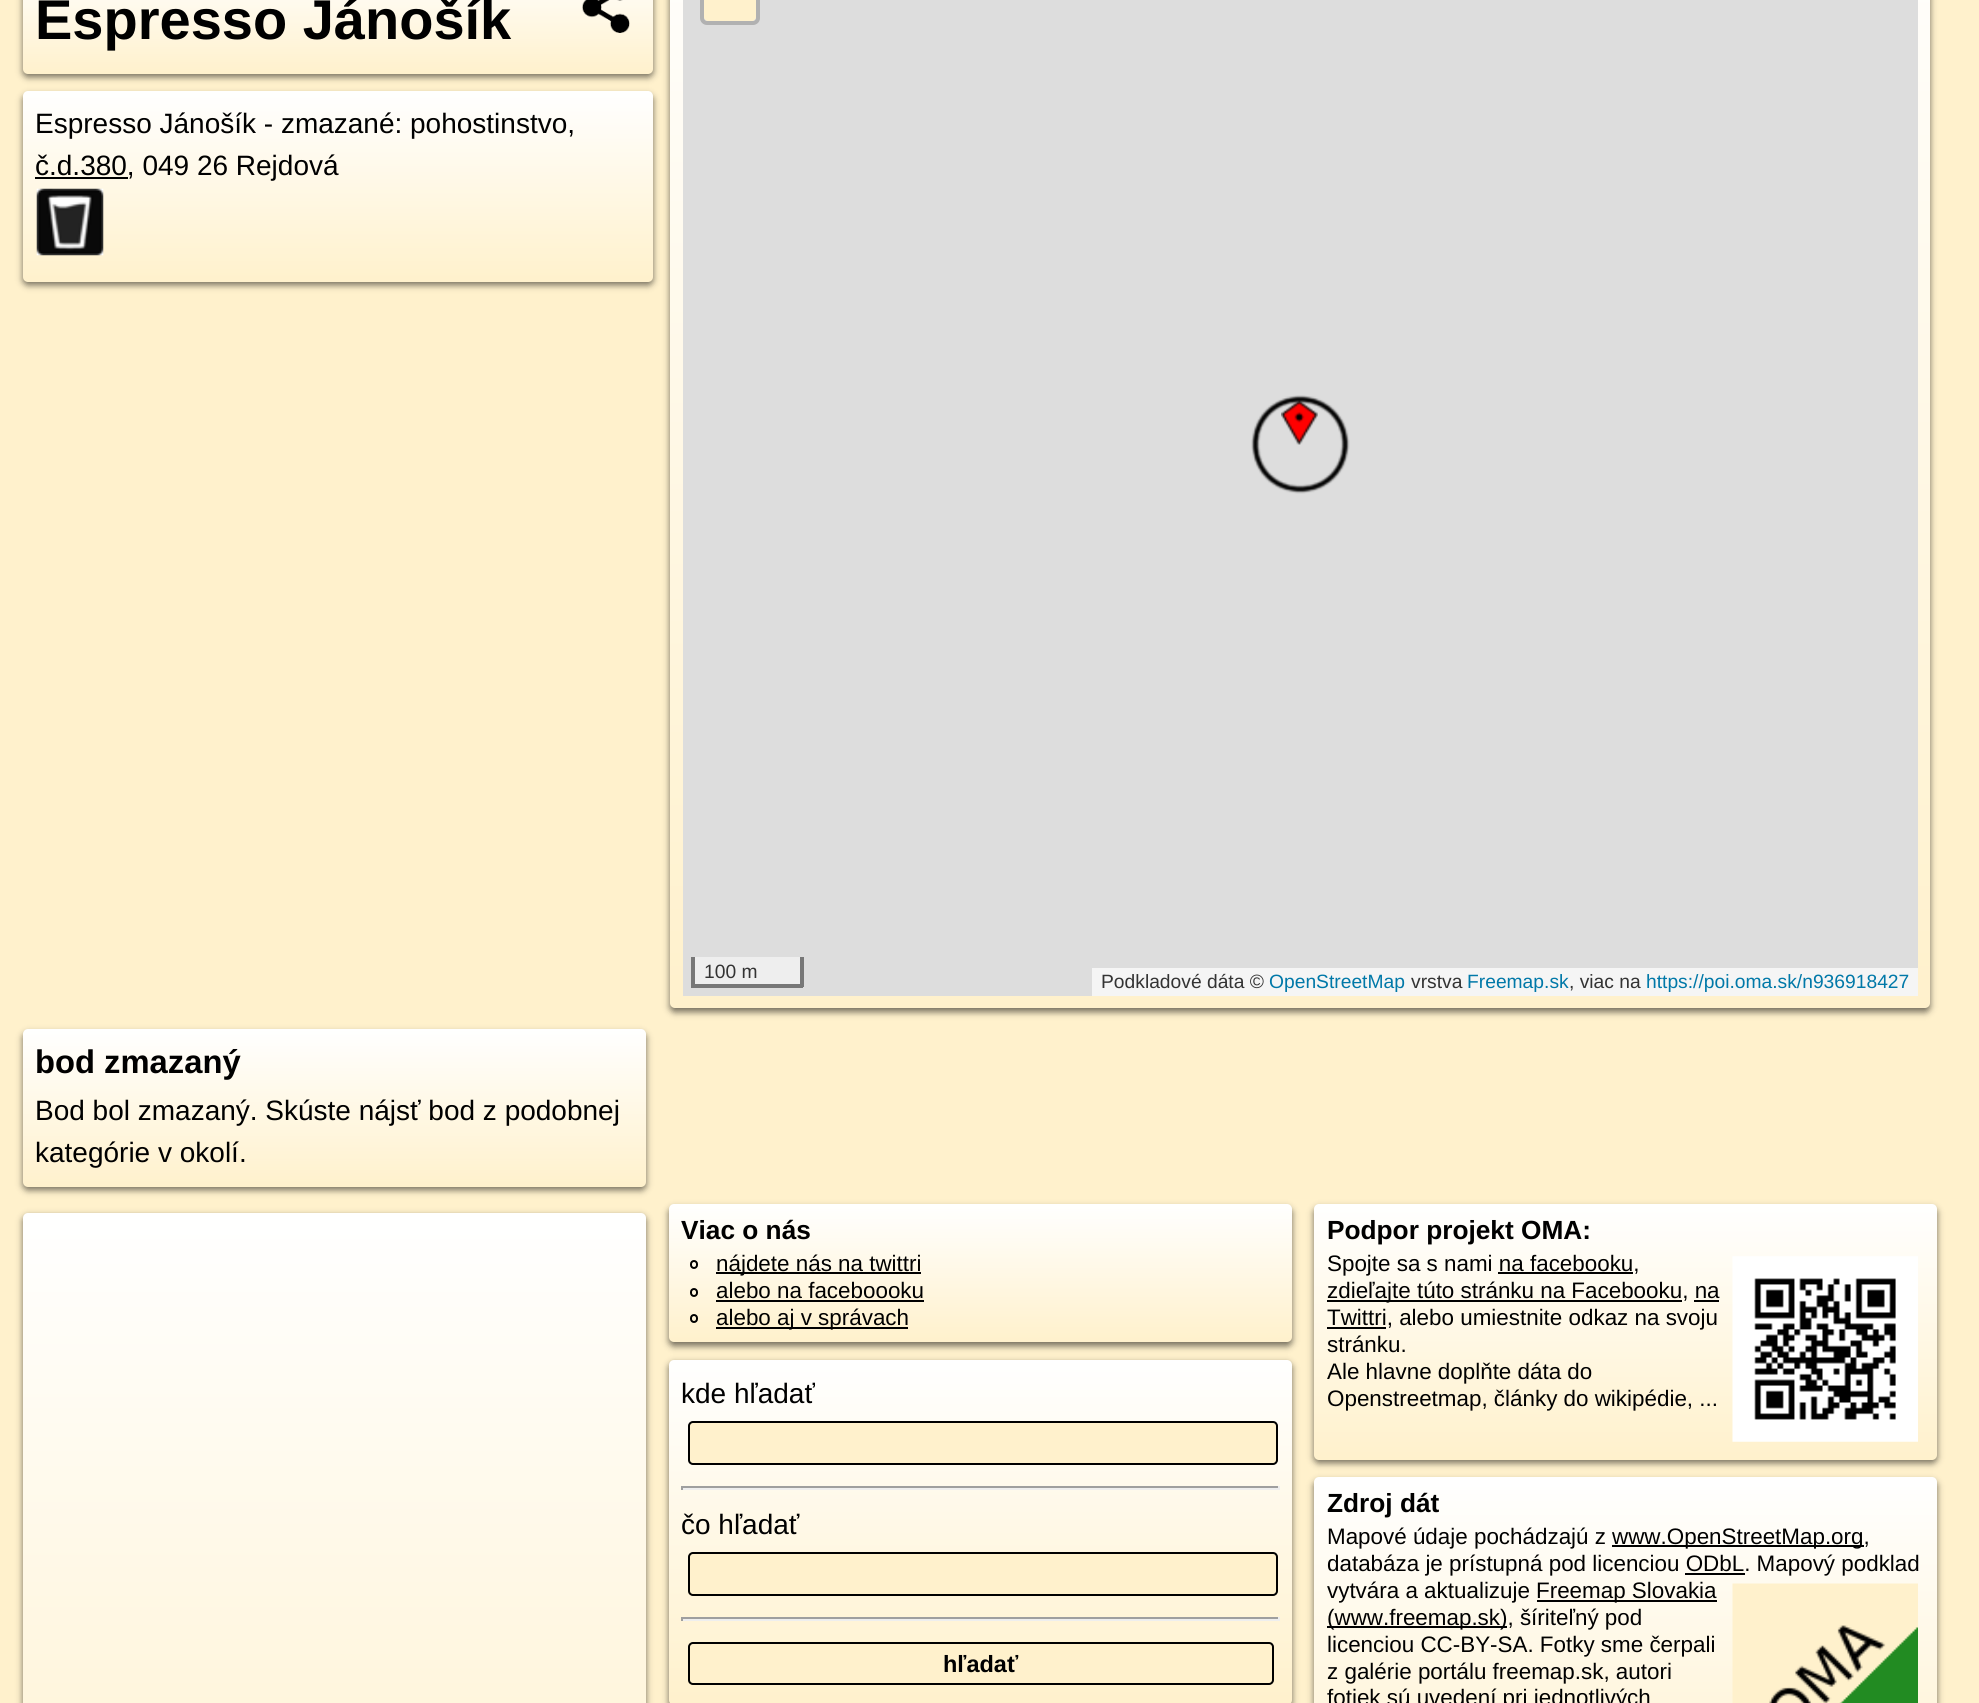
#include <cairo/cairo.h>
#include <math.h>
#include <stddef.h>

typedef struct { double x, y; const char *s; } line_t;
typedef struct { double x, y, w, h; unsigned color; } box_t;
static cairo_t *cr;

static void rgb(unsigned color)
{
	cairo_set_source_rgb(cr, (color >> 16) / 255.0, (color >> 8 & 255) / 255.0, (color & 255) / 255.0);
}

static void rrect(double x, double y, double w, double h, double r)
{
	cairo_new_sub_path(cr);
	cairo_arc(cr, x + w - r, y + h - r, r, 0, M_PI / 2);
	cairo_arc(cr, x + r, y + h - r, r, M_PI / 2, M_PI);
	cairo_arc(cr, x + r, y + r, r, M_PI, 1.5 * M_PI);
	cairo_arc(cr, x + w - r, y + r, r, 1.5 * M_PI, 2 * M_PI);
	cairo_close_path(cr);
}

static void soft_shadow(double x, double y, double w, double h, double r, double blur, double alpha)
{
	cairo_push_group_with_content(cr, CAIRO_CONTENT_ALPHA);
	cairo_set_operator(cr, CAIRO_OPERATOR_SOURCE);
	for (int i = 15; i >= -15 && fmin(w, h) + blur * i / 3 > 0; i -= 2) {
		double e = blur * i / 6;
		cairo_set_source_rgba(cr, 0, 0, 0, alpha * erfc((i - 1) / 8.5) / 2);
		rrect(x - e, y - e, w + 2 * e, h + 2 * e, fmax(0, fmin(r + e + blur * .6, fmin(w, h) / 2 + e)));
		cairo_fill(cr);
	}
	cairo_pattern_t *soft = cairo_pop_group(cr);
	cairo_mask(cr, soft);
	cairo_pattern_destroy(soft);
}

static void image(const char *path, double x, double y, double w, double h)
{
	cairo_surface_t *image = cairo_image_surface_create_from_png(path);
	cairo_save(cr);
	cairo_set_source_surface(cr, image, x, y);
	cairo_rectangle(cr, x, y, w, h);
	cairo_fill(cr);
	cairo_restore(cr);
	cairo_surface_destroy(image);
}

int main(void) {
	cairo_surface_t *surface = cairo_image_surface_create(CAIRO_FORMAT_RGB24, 1979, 1703);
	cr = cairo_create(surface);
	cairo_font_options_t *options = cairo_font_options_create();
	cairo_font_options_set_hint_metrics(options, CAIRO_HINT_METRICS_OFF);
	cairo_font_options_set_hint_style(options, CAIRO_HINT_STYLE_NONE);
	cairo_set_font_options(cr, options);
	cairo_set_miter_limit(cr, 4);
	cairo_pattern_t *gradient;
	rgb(0xfff1cc);
	cairo_paint(cr);
	rgb(0x000000);
	soft_shadow(23, -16, 630, 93, 5, 3.5, 0.55);
	gradient = cairo_pattern_create_linear(338, -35, 338, 74);
	cairo_pattern_add_color_stop_rgba(gradient, 0, 1, 1, 1, 1);
	cairo_pattern_add_color_stop_rgba(gradient, 1, 1, 0.945, 0.8, 1);
	cairo_set_source(cr, gradient);
	cairo_pattern_destroy(gradient);
	rrect(23, -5, 630, 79, 5);
	cairo_fill(cr);
	image("img/1.png", 582, 0, 48, 33);
	rgb(0x000000);
	soft_shadow(23, 95, 630, 190, 5, 3.5, 0.55);
	gradient = cairo_pattern_create_linear(338, 91, 338, 282);
	cairo_pattern_add_color_stop_rgba(gradient, 0, 1, 1, 1, 1);
	cairo_pattern_add_color_stop_rgba(gradient, 1, 1, 0.945, 0.8, 1);
	cairo_set_source(cr, gradient);
	cairo_pattern_destroy(gradient);
	rrect(23, 91, 630, 191, 5);
	cairo_fill(cr);
	rgb(0x000000);
	cairo_rectangle(cr, 35, 177, 93, 2);
	cairo_fill(cr);
	image("img/2.png", 36, 188, 68, 68);
	rgb(0x000000);
	soft_shadow(670, -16, 1260, 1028, 5, 3.5, 0.55);
	gradient = cairo_pattern_create_linear(1300, -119, 1300, 1008);
	cairo_pattern_add_color_stop_rgba(gradient, 0, 1, 1, 1, 1);
	cairo_pattern_add_color_stop_rgba(gradient, 1, 1, 0.945, 0.8, 1);
	cairo_set_source(cr, gradient);
	cairo_pattern_destroy(gradient);
	rrect(670, -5, 1260, 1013, 5);
	cairo_fill(cr);
	rgb(0xdddddd);
	cairo_rectangle(cr, 683, 0, 1235, 996);
	cairo_fill(cr);
	image("img/3.png", 1251, 395, 99, 99);
	image("img/4.png", 1281, 400, 37, 45);
	rrect(702, -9, 56, 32, 5);
	rgb(0xb1b1b1);
	cairo_set_line_width(cr, 4);
	cairo_stroke(cr);
	rgb(0xfff1cc);
	cairo_new_path(cr);
	cairo_move_to(cr, 704, -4);
	cairo_line_to(cr, 756, -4);
	cairo_line_to(cr, 756, 17);
	cairo_curve_to(cr, 756, 19, 754, 21, 752, 21);
	cairo_line_to(cr, 708, 21);
	cairo_curve_to(cr, 706, 21, 704, 19, 704, 17);
	cairo_close_path(cr);
	cairo_fill(cr);
	{
		static const box_t items[] = {
			{695, 957, 105, 27, 0xeeeeee},
			{800, 957, 4, 30, 0x777777},
			{691, 984, 112, 4, 0x777777},
			{691, 957, 4, 30, 0x777777},
			{1092, 968, 826, 28, 0xf5f5f5},
		};
		for (size_t i = 0; i < sizeof items / sizeof *items; i++) {
			rgb(items[i].color);
			cairo_rectangle(cr, items[i].x, items[i].y, items[i].w, items[i].h);
			cairo_fill(cr);
		}
	}
	rgb(0x000000);
	soft_shadow(23, 1033, 623, 157, 5, 3.5, 0.55);
	gradient = cairo_pattern_create_linear(334, 1029, 334, 1187);
	cairo_pattern_add_color_stop_rgba(gradient, 0, 1, 1, 1, 1);
	cairo_pattern_add_color_stop_rgba(gradient, 1, 1, 0.945, 0.8, 1);
	cairo_set_source(cr, gradient);
	cairo_pattern_destroy(gradient);
	rrect(23, 1029, 623, 158, 5);
	cairo_fill(cr);
	rgb(0x000000);
	soft_shadow(23, 1216, 623, 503, 5, 3.5, 0.55);
	gradient = cairo_pattern_create_linear(334, 1213, 334, 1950);
	cairo_pattern_add_color_stop_rgba(gradient, 0, 1, 1, 1, 1);
	cairo_pattern_add_color_stop_rgba(gradient, 1, 1, 0.945, 0.8, 1);
	cairo_set_source(cr, gradient);
	cairo_pattern_destroy(gradient);
	rrect(23, 1213, 623, 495, 5);
	cairo_fill(cr);
	rgb(0x000000);
	soft_shadow(669, 1208, 623, 138, 5, 3.5, 0.55);
	gradient = cairo_pattern_create_linear(980, 1204, 980, 1342);
	cairo_pattern_add_color_stop_rgba(gradient, 0, 1, 1, 1, 1);
	cairo_pattern_add_color_stop_rgba(gradient, 1, 1, 0.945, 0.8, 1);
	cairo_set_source(cr, gradient);
	cairo_pattern_destroy(gradient);
	rrect(669, 1204, 623, 138, 5);
	cairo_fill(cr);
	rrect(691, 1261, 6, 7, 3);
	rgb(0x000000);
	cairo_set_line_width(cr, 2);
	cairo_stroke(cr);
	cairo_rectangle(cr, 716, 1272, 205, 2);
	cairo_fill(cr);
	rrect(691, 1289, 6, 7, 3);
	cairo_stroke(cr);
	cairo_rectangle(cr, 716, 1300, 208, 2);
	cairo_fill(cr);
	rrect(691, 1315, 6, 7, 3);
	cairo_stroke(cr);
	cairo_rectangle(cr, 716, 1327, 192, 2);
	cairo_fill(cr);
	rgb(0x000000);
	soft_shadow(1314, 1208, 623, 255, 5, 3.5, 0.55);
	gradient = cairo_pattern_create_linear(1626, 1204, 1626, 1460);
	cairo_pattern_add_color_stop_rgba(gradient, 0, 1, 1, 1, 1);
	cairo_pattern_add_color_stop_rgba(gradient, 1, 1, 0.945, 0.8, 1);
	cairo_set_source(cr, gradient);
	cairo_pattern_destroy(gradient);
	rrect(1314, 1204, 623, 256, 5);
	cairo_fill(cr);
	{
		static const box_t items[] = {
			{1498, 1272, 135, 2, 0x000000},
			{1327, 1300, 355, 2, 0x000000},
			{1694, 1300, 25, 2, 0x000000},
			{1327, 1327, 59, 2, 0x000000},
		};
		for (size_t i = 0; i < sizeof items / sizeof *items; i++) {
			rgb(items[i].color);
			cairo_rectangle(cr, items[i].x, items[i].y, items[i].w, items[i].h);
			cairo_fill(cr);
		}
	}
	image("img/5.png", 1732, 1256, 186, 186);
	rgb(0x000000);
	soft_shadow(669, 1363, 623, 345, 5, 3.5, 0.55);
	gradient = cairo_pattern_create_linear(980, 1360, 980, 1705);
	cairo_pattern_add_color_stop_rgba(gradient, 0, 1, 1, 1, 1);
	cairo_pattern_add_color_stop_rgba(gradient, 1, 1, 0.945, 0.8, 1);
	cairo_set_source(cr, gradient);
	cairo_pattern_destroy(gradient);
	rrect(669, 1360, 623, 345, 5);
	cairo_fill(cr);
	rgb(0xfff1cc);
	rrect(689, 1422, 588, 42, 4);
	cairo_fill_preserve(cr);
	rgb(0x000000);
	cairo_stroke(cr);
	{
		static const box_t items[] = {
			{681, 1486, 598, 2, 0x9f9f9f},
			{1278, 1486, 2, 4, 0xeeeeee},
			{681, 1488, 598, 2, 0xeeeeee},
			{681, 1486, 2, 4, 0x9f9f9f},
		};
		for (size_t i = 0; i < sizeof items / sizeof *items; i++) {
			rgb(items[i].color);
			cairo_rectangle(cr, items[i].x, items[i].y, items[i].w, items[i].h);
			cairo_fill(cr);
		}
	}
	rgb(0xfff1cc);
	rrect(689, 1553, 588, 42, 4);
	cairo_fill_preserve(cr);
	rgb(0x000000);
	cairo_stroke(cr);
	{
		static const box_t items[] = {
			{681, 1617, 598, 2, 0x9f9f9f},
			{1278, 1617, 2, 4, 0xeeeeee},
			{681, 1619, 598, 2, 0xeeeeee},
			{681, 1617, 2, 4, 0x9f9f9f},
		};
		for (size_t i = 0; i < sizeof items / sizeof *items; i++) {
			rgb(items[i].color);
			cairo_rectangle(cr, items[i].x, items[i].y, items[i].w, items[i].h);
			cairo_fill(cr);
		}
	}
	rgb(0xfff1cc);
	rrect(689, 1643, 584, 41, 4);
	cairo_fill_preserve(cr);
	rgb(0x000000);
	cairo_stroke(cr);
	rgb(0x000000);
	soft_shadow(1314, 1481, 623, 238, 5, 3.5, 0.55);
	gradient = cairo_pattern_create_linear(1626, 1477, 1626, 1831);
	cairo_pattern_add_color_stop_rgba(gradient, 0, 1, 1, 1, 1);
	cairo_pattern_add_color_stop_rgba(gradient, 1, 1, 0.945, 0.8, 1);
	cairo_set_source(cr, gradient);
	cairo_pattern_destroy(gradient);
	rrect(1314, 1477, 623, 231, 5);
	cairo_fill(cr);
	{
		static const box_t items[] = {
			{1612, 1545, 252, 2, 0x000000},
			{1685, 1573, 60, 2, 0x000000},
			{1537, 1600, 180, 2, 0x000000},
		};
		for (size_t i = 0; i < sizeof items / sizeof *items; i++) {
			rgb(items[i].color);
			cairo_rectangle(cr, items[i].x, items[i].y, items[i].w, items[i].h);
			cairo_fill(cr);
		}
	}
	image("img/6.png", 1732, 1583, 186, 120);
	cairo_rectangle(cr, 1327, 1626, 180, 2);
	cairo_fill(cr);
	cairo_select_font_face(cr, "Liberation Sans", CAIRO_FONT_SLANT_NORMAL, CAIRO_FONT_WEIGHT_BOLD);
	cairo_set_font_size(cr, 56);
	cairo_move_to(cr, 35, 39);
	cairo_show_text(cr, "Espresso Jánošík");
	cairo_select_font_face(cr, "Liberation Sans", CAIRO_FONT_SLANT_NORMAL, CAIRO_FONT_WEIGHT_NORMAL);
	cairo_set_font_size(cr, 28);
	cairo_move_to(cr, 35, 133);
	cairo_show_text(cr, "Espresso Jánošík - zmazané: pohostinstvo,");
	cairo_move_to(cr, 35, 175);
	cairo_show_text(cr, "č.d.380, 049 26 Rejdová");
	cairo_set_font_size(cr, 19.25);
	rgb(0x333333);
	cairo_move_to(cr, 704, 978);
	cairo_show_text(cr, "100 m");
	cairo_move_to(cr, 1101, 988);
	cairo_show_text(cr, "Podkladové dáta ©");
	rgb(0x0078a8);
	cairo_move_to(cr, 1269, 988);
	cairo_show_text(cr, "OpenStreetMap");
	rgb(0x333333);
	cairo_move_to(cr, 1411, 988);
	cairo_show_text(cr, "vrstva");
	rgb(0x0078a8);
	cairo_move_to(cr, 1467, 988);
	cairo_show_text(cr, "Freemap.sk");
	rgb(0x333333);
	cairo_move_to(cr, 1569, 988);
	cairo_show_text(cr, ", viac na");
	rgb(0x0078a8);
	cairo_move_to(cr, 1646, 988);
	cairo_show_text(cr, "https://poi.oma.sk/n936918427");
	cairo_select_font_face(cr, "Liberation Sans", CAIRO_FONT_SLANT_NORMAL, CAIRO_FONT_WEIGHT_BOLD);
	cairo_set_font_size(cr, 32.75);
	rgb(0x000000);
	cairo_move_to(cr, 35, 1073);
	cairo_show_text(cr, "bod zmazaný");
	cairo_select_font_face(cr, "Liberation Sans", CAIRO_FONT_SLANT_NORMAL, CAIRO_FONT_WEIGHT_NORMAL);
	cairo_set_font_size(cr, 28);
	cairo_move_to(cr, 35, 1120);
	cairo_show_text(cr, "Bod bol zmazaný. Skúste nájsť bod z podobnej");
	cairo_move_to(cr, 35, 1162);
	cairo_show_text(cr, "kategórie v okolí.");
	cairo_select_font_face(cr, "Liberation Sans", CAIRO_FONT_SLANT_NORMAL, CAIRO_FONT_WEIGHT_BOLD);
	cairo_set_font_size(cr, 26.25);
	cairo_move_to(cr, 681, 1239);
	cairo_show_text(cr, "Viac o nás");
	cairo_select_font_face(cr, "Liberation Sans", CAIRO_FONT_SLANT_NORMAL, CAIRO_FONT_WEIGHT_NORMAL);
	cairo_set_font_size(cr, 22.4);
	{
		static const line_t items[] = {
			{716, 1271, "nájdete nás na twittri"},
			{716, 1298, "alebo na faceboooku"},
			{716, 1325, "alebo aj v správach"},
		};
		for (size_t i = 0; i < sizeof items / sizeof *items; i++) {
			cairo_move_to(cr, items[i].x, items[i].y);
			cairo_show_text(cr, items[i].s);
		}
	}
	cairo_select_font_face(cr, "Liberation Sans", CAIRO_FONT_SLANT_NORMAL, CAIRO_FONT_WEIGHT_BOLD);
	cairo_set_font_size(cr, 26.25);
	cairo_move_to(cr, 1327, 1239);
	cairo_show_text(cr, "Podpor projekt OMA:");
	cairo_select_font_face(cr, "Liberation Sans", CAIRO_FONT_SLANT_NORMAL, CAIRO_FONT_WEIGHT_NORMAL);
	cairo_set_font_size(cr, 22.4);
	{
		static const line_t items[] = {
			{1327, 1271, "Spojte sa s nami na facebooku,"},
			{1327, 1298, "zdieľajte túto stránku na Facebooku, na"},
			{1327, 1325, "Twittri, alebo umiestnite odkaz na svoju"},
			{1327, 1352, "stránku."},
			{1327, 1379, "Ale hlavne doplňte dáta do"},
			{1327, 1406, "Openstreetmap, články do wikipédie, ..."},
		};
		for (size_t i = 0; i < sizeof items / sizeof *items; i++) {
			cairo_move_to(cr, items[i].x, items[i].y);
			cairo_show_text(cr, items[i].s);
		}
	}
	cairo_set_font_size(cr, 28);
	cairo_move_to(cr, 681, 1403);
	cairo_show_text(cr, "kde hľadať");
	cairo_move_to(cr, 681, 1534);
	cairo_show_text(cr, "čo hľadať");
	cairo_select_font_face(cr, "Liberation Sans", CAIRO_FONT_SLANT_NORMAL, CAIRO_FONT_WEIGHT_BOLD);
	cairo_set_font_size(cr, 23.5);
	cairo_move_to(cr, 943, 1672);
	cairo_show_text(cr, "hľadať");
	cairo_set_font_size(cr, 26.25);
	cairo_move_to(cr, 1327, 1512);
	cairo_show_text(cr, "Zdroj dát");
	cairo_select_font_face(cr, "Liberation Sans", CAIRO_FONT_SLANT_NORMAL, CAIRO_FONT_WEIGHT_NORMAL);
	cairo_set_font_size(cr, 22.4);
	{
		static const line_t items[] = {
			{1327, 1544, "Mapové údaje pochádzajú z"},
			{1612, 1544, "www.OpenStreetMap.org,"},
			{1327, 1571, "databáza je prístupná pod licenciou ODbL. Mapový podklad"},
			{1327, 1598, "vytvára a aktualizuje"},
			{1536, 1598, "Freemap Slovakia"},
			{1327, 1625, "(www.freemap.sk), šíriteľný pod"},
			{1327, 1652, "licenciou CC-BY-SA. Fotky sme čerpali"},
			{1327, 1679, "z galérie portálu freemap.sk, autori"},
			{1327, 1705, "fotiek sú uvedení pri jednotlivých"},
		};
		for (size_t i = 0; i < sizeof items / sizeof *items; i++) {
			cairo_move_to(cr, items[i].x, items[i].y);
			cairo_show_text(cr, items[i].s);
		}
	}
	cairo_surface_write_to_png(surface, "page.png");
	cairo_font_options_destroy(options);
	cairo_destroy(cr);
	cairo_surface_destroy(surface);
	return 0;
}
